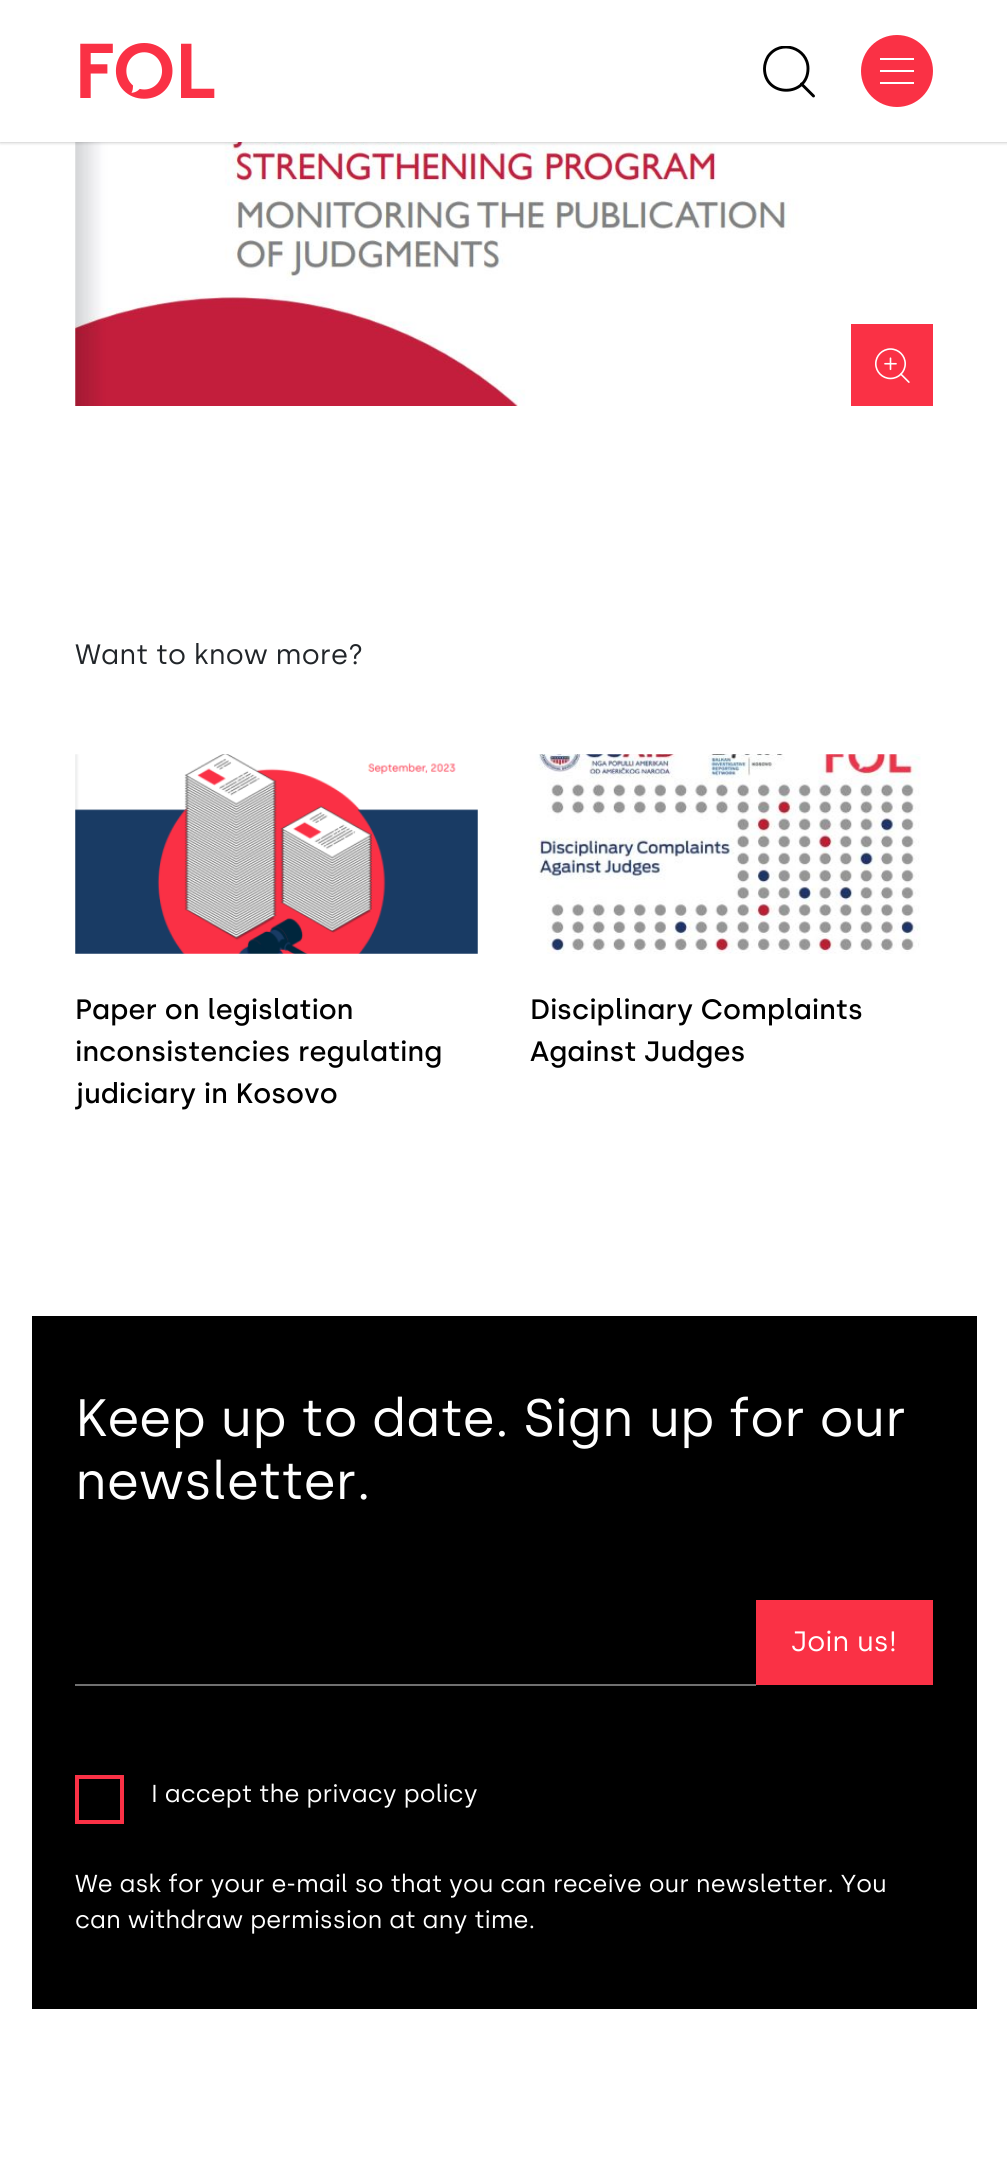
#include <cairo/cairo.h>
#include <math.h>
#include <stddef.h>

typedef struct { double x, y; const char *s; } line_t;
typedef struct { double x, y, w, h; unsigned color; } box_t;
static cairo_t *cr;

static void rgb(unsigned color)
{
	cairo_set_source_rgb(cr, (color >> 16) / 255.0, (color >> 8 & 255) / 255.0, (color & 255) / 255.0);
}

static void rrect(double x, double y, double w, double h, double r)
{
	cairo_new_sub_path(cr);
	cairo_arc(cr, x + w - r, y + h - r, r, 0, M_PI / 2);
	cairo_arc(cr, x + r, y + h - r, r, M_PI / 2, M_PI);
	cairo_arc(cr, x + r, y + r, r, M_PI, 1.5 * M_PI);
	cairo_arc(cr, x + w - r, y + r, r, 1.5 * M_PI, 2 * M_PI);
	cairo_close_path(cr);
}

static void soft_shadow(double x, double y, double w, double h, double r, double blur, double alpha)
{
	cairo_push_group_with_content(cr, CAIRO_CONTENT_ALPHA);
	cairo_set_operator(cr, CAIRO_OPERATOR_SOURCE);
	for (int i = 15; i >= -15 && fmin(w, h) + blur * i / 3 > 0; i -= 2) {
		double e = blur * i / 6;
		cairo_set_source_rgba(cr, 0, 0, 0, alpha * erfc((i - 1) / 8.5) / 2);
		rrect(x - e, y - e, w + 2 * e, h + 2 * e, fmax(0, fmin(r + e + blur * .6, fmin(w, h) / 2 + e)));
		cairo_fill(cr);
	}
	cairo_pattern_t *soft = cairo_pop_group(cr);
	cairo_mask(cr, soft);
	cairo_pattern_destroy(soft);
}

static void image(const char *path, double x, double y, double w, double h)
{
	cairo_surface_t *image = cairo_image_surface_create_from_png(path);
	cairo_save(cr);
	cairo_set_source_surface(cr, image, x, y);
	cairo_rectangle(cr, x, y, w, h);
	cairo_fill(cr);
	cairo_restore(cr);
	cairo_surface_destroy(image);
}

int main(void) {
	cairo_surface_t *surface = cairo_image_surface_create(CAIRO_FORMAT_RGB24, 1007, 2163);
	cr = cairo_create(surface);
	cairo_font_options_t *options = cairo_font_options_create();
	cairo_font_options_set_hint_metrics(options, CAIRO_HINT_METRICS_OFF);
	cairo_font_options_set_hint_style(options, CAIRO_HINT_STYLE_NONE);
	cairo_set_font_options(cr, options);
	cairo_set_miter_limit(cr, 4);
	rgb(0xffffff);
	cairo_paint(cr);
	image("img/2.png", 75, 142, 783, 264);
	rgb(0x000000);
	soft_shadow(0, 0, 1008, 142, 0, 2, 0.3);
	rgb(0xffffff);
	cairo_rectangle(cr, 0, 0, 1007, 142);
	cairo_fill(cr);
	image("img/1.png", 80, 43, 135, 56);
	cairo_save(cr);
	cairo_rectangle(cr, 763, 46, 53, 52);
	cairo_clip(cr);
	cairo_new_path(cr);
	cairo_move_to(cr, 808, 68.5);
	cairo_curve_to(cr, 808, 97.5, 764.5, 97.5, 764.5, 68.5);
	cairo_curve_to(cr, 764.5, 64.5, 766, 60, 768, 56.5);
	cairo_curve_to(cr, 780.5, 38.5, 808, 48, 808, 68.5);
	cairo_close_path(cr);
	rgb(0x000000);
	cairo_set_line_width(cr, 2.9);
	cairo_set_line_cap(cr, CAIRO_LINE_CAP_ROUND);
	cairo_set_line_join(cr, CAIRO_LINE_JOIN_ROUND);
	cairo_stroke(cr);
	cairo_restore(cr);
	cairo_new_path(cr);
	cairo_move_to(cr, 813.5, 96);
	cairo_line_to(cr, 801.5, 84);
	rgb(0x000000);
	cairo_set_line_width(cr, 2.9);
	cairo_set_line_cap(cr, CAIRO_LINE_CAP_ROUND);
	cairo_set_line_join(cr, CAIRO_LINE_JOIN_ROUND);
	cairo_stroke(cr);
	rgb(0xfa3145);
	cairo_arc(cr, 897, 71, 36, 0, 2 * M_PI);
	cairo_fill(cr);
	{
		static const box_t items[] = {
			{880, 70, 34, 2, 0xffffff},
			{880, 58, 34, 2, 0xffffff},
			{880, 82, 34, 2, 0xffffff},
			{851, 324, 82, 82, 0xfa3145},
		};
		for (size_t i = 0; i < sizeof items / sizeof *items; i++) {
			rgb(items[i].color);
			cairo_rectangle(cr, items[i].x, items[i].y, items[i].w, items[i].h);
			cairo_fill(cr);
		}
	}
	image("img/3.png", 875, 348, 35, 35);
	image("img/4.png", 75, 754, 403, 200);
	image("img/5.png", 530, 754, 391, 200);
	{
		static const box_t items[] = {
			{32, 1316, 945, 693, 0x000000},
			{756, 1600, 177, 85, 0xfa3145},
			{75, 1684, 681, 2, 0x707070},
		};
		for (size_t i = 0; i < sizeof items / sizeof *items; i++) {
			rgb(items[i].color);
			cairo_rectangle(cr, items[i].x, items[i].y, items[i].w, items[i].h);
			cairo_fill(cr);
		}
	}
	cairo_rectangle(cr, 77, 1777, 45, 45);
	rgb(0xfa3145);
	cairo_set_line_width(cr, 4);
	cairo_set_line_cap(cr, CAIRO_LINE_CAP_BUTT);
	cairo_set_line_join(cr, CAIRO_LINE_JOIN_MITER);
	cairo_stroke(cr);
	cairo_select_font_face(cr, "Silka", CAIRO_FONT_SLANT_NORMAL, CAIRO_FONT_WEIGHT_NORMAL);
	cairo_set_font_size(cr, 28);
	rgb(0x212529);
	cairo_move_to(cr, 75, 664);
	cairo_show_text(cr, "Want to know more?");
	cairo_select_font_face(cr, "Silka Medium", CAIRO_FONT_SLANT_NORMAL, CAIRO_FONT_WEIGHT_NORMAL);
	rgb(0x000000);
	{
		static const line_t items[] = {
			{75, 1019, "Paper on legislation"},
			{75, 1061, "inconsistencies regulating"},
			{75, 1103, "judiciary in Kosovo"},
			{530, 1019, "Disciplinary Complaints"},
			{530, 1061, "Against Judges"},
		};
		for (size_t i = 0; i < sizeof items / sizeof *items; i++) {
			cairo_move_to(cr, items[i].x, items[i].y);
			cairo_show_text(cr, items[i].s);
		}
	}
	cairo_select_font_face(cr, "Silka", CAIRO_FONT_SLANT_NORMAL, CAIRO_FONT_WEIGHT_NORMAL);
	cairo_set_font_size(cr, 52.5);
	rgb(0xffffff);
	cairo_move_to(cr, 75, 1436);
	cairo_show_text(cr, "Keep up to date. Sign up for our");
	cairo_move_to(cr, 75, 1499);
	cairo_show_text(cr, "newsletter.");
	cairo_set_font_size(cr, 28);
	cairo_move_to(cr, 791, 1651);
	cairo_show_text(cr, "Join us!");
	cairo_set_font_size(cr, 24.5);
	{
		static const line_t items[] = {
			{151, 1802, "I accept the privacy policy"},
			{75, 1892, "We ask for your e-mail so that you can receive our newsletter. You"},
			{75, 1928, "can withdraw permission at any time."},
		};
		for (size_t i = 0; i < sizeof items / sizeof *items; i++) {
			cairo_move_to(cr, items[i].x, items[i].y);
			cairo_show_text(cr, items[i].s);
		}
	}
	cairo_surface_write_to_png(surface, "page.png");
	cairo_font_options_destroy(options);
	cairo_destroy(cr);
	cairo_surface_destroy(surface);
	return 0;
}
